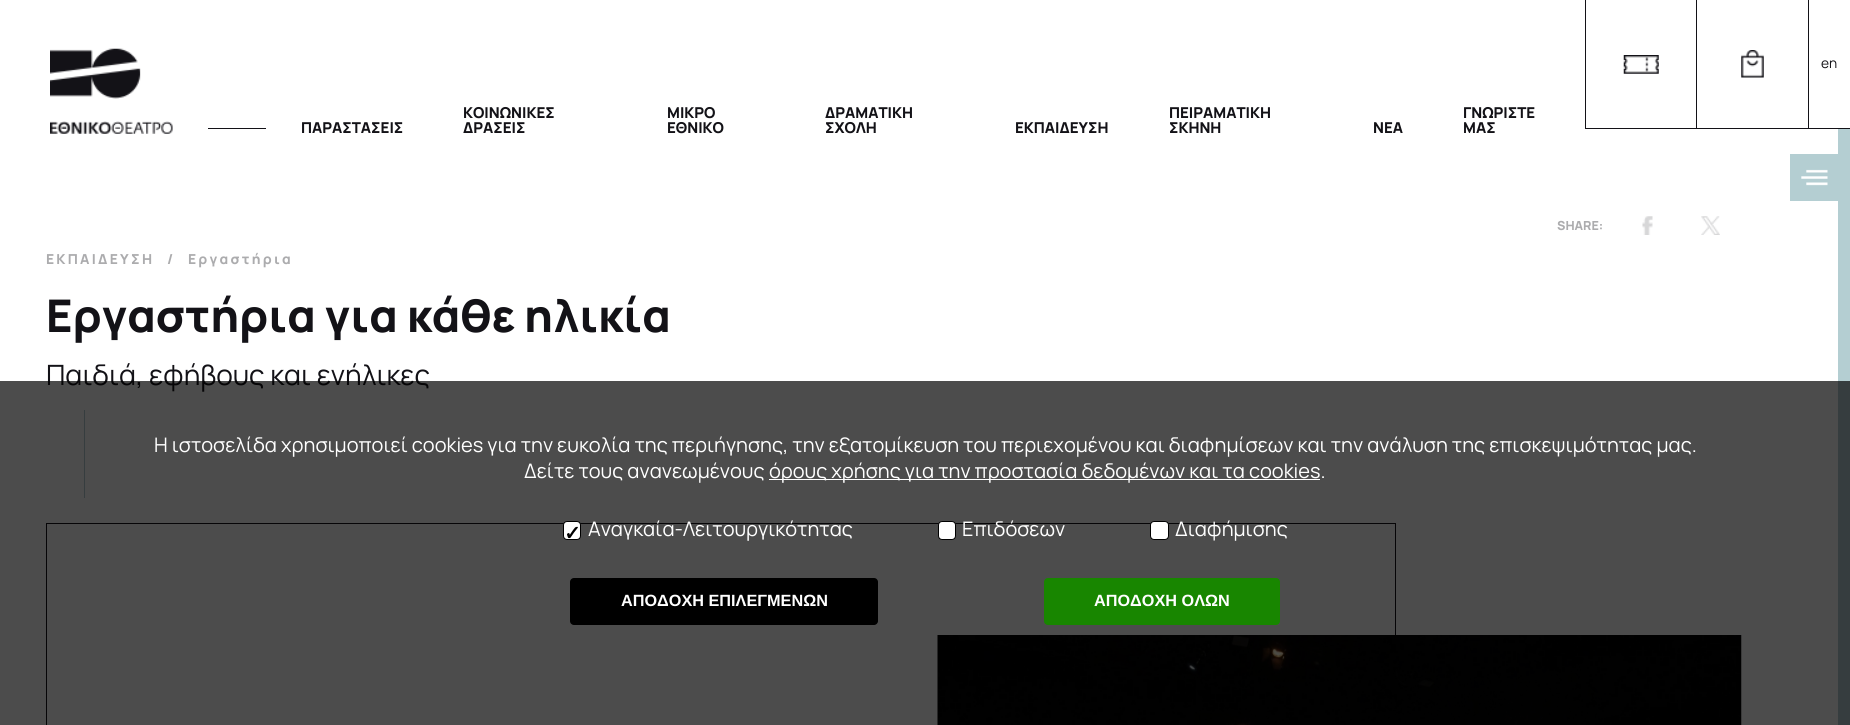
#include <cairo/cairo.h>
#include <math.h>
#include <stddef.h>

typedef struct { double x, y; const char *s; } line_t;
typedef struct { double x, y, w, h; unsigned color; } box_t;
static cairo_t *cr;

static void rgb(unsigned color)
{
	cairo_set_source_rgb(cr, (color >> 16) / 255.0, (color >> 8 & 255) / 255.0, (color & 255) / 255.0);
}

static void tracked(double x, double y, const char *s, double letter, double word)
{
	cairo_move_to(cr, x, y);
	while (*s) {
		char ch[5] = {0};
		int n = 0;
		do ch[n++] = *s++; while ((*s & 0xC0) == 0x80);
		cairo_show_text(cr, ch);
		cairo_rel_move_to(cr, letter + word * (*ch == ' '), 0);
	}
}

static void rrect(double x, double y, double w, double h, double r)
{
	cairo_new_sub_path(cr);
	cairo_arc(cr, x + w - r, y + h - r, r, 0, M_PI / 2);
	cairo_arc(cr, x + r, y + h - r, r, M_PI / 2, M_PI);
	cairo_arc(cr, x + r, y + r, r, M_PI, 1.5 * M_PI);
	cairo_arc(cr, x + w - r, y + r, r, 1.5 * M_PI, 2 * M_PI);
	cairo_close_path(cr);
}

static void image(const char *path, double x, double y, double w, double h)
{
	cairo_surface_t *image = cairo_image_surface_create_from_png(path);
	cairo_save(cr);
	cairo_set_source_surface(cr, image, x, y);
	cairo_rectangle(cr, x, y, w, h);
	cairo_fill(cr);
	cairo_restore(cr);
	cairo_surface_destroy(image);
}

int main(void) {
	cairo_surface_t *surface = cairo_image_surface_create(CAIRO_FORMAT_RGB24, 1850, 725);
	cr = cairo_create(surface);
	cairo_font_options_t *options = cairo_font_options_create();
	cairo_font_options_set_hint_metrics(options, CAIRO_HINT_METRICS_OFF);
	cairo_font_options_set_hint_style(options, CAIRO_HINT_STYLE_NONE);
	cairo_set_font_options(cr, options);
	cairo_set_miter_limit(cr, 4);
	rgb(0xffffff);
	cairo_paint(cr);
	image("img/1.png", 50, 48, 123, 86);
	image("img/2.png", 1623, 55, 36, 19);
	rgb(0x131217);
	cairo_rectangle(cr, 1585, 128, 265, 1);
	cairo_fill(cr);
	cairo_rectangle(cr, 1585, 0, 1, 129);
	cairo_fill(cr);
	image("img/3.png", 1741, 50, 23, 28);
	{
		static const box_t items[] = {
			{1696, 0, 1, 129, 0x131217},
			{1808, 0, 1, 129, 0x131217},
			{208, 128, 58, 1, 0x131217},
		};
		for (size_t i = 0; i < sizeof items / sizeof *items; i++) {
			rgb(items[i].color);
			cairo_rectangle(cr, items[i].x, items[i].y, items[i].w, items[i].h);
			cairo_fill(cr);
		}
	}
	image("img/4.png", 1642, 216, 11, 19);
	image("img/5.png", 1701, 216, 19, 19);
	rgb(0xb4ced2);
	cairo_rectangle(cr, 84, 410, 1, 88);
	cairo_fill(cr);
	cairo_rectangle(cr, 46.5, 523.5, 1349, 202);
	rgb(0x131217);
	cairo_set_line_width(cr, 1);
	cairo_stroke(cr);
	image("img/6.png", 937, 635, 805, 90);
	rgb(0xb4ced2);
	cairo_rectangle(cr, 1838, 129, 12, 596);
	cairo_fill(cr);
	cairo_rectangle(cr, 1790, 154, 48, 47);
	cairo_fill(cr);
	image("img/7.png", 1801, 169, 27, 17);
	cairo_select_font_face(cr, "Manrope", CAIRO_FONT_SLANT_NORMAL, CAIRO_FONT_WEIGHT_NORMAL);
	cairo_set_font_size(cr, 13.75);
	rgb(0x131217);
	cairo_move_to(cr, 1821, 68);
	cairo_show_text(cr, "en");
	cairo_select_font_face(cr, "Manrope ExtraBold", CAIRO_FONT_SLANT_NORMAL, CAIRO_FONT_WEIGHT_NORMAL);
	cairo_set_font_size(cr, 15);
	{
		static const line_t items[] = {
			{301, 133, "ΠΑΡΑΣΤΑΣΕΙΣ"},
			{463, 118, "ΚΟΙΝΩΝΙΚΕΣ"},
			{463, 133, "ΔΡΑΣΕΙΣ"},
			{667, 118, "ΜΙΚΡΟ"},
			{667, 133, "ΕΘΝΙΚΟ"},
			{825, 118, "ΔΡΑΜΑΤΙΚΗ"},
			{825, 133, "ΣΧΟΛΗ"},
			{1015, 133, "ΕΚΠΑΙΔΕΥΣΗ"},
			{1169, 118, "ΠΕΙΡΑΜΑΤΙΚΗ"},
			{1169, 133, "ΣΚΗΝΗ"},
			{1373, 133, "ΝΕΑ"},
			{1463, 118, "ΓΝΩΡΙΣΤΕ"},
			{1463, 133, "ΜΑΣ"},
		};
		for (size_t i = 0; i < sizeof items / sizeof *items; i++) {
			cairo_move_to(cr, items[i].x, items[i].y);
			cairo_show_text(cr, items[i].s);
		}
	}
	cairo_set_font_size(cr, 12.5);
	rgb(0xacacae);
	cairo_move_to(cr, 1557, 230);
	cairo_show_text(cr, "SHARE:");
	cairo_set_font_size(cr, 13.75);
	{
		static const line_t items[] = {
			{46, 264, "ΕΚΠΑΙΔΕΥΣΗ"},
			{167, 264, "/"},
			{188, 264, "Εργαστήρια"},
		};
		for (size_t i = 0; i < sizeof items / sizeof *items; i++) {
			tracked(items[i].x, items[i].y, items[i].s, 2.25, 0);
		}
	}
	cairo_set_font_size(cr, 45);
	rgb(0x131217);
	cairo_move_to(cr, 46, 332);
	cairo_show_text(cr, "Εργαστήρια για κάθε ηλικία");
	cairo_select_font_face(cr, "Manrope", CAIRO_FONT_SLANT_NORMAL, CAIRO_FONT_WEIGHT_NORMAL);
	cairo_set_font_size(cr, 28);
	cairo_move_to(cr, 46, 385);
	cairo_show_text(cr, "Παιδιά, εφήβους και ενήλικες");
	cairo_set_source_rgba(cr, 0, 0, 0, 0.7);
	cairo_rectangle(cr, 0, 381, 1850, 344);
	cairo_fill(cr);
	cairo_set_font_size(cr, 20);
	rgb(0xffffff);
	cairo_move_to(cr, 154, 452);
	cairo_show_text(cr, "Η ιστοσελίδα χρησιμοποιεί cookies για την ευκολία της περιήγησης, την εξατομίκευση του περιεχομένου και διαφημίσεων και την ανάλυση της επισκεψιμότητας μας.");
	cairo_move_to(cr, 524, 478);
	cairo_show_text(cr, "Δείτε τους ανανεωμένους");
	cairo_rectangle(cr, 769, 479, 551, 1);
	cairo_fill(cr);
	cairo_move_to(cr, 769, 478);
	cairo_show_text(cr, "όρους χρήσης για την προστασία δεδομένων και τα cookies.");
	rrect(563.5, 521.5, 17, 18, 3.5);
	cairo_fill_preserve(cr);
	rgb(0x000000);
	cairo_stroke(cr);
	cairo_select_font_face(cr, "DejaVu Sans", CAIRO_FONT_SLANT_NORMAL, CAIRO_FONT_WEIGHT_BOLD);
	cairo_move_to(cr, 564, 540);
	cairo_show_text(cr, "✓");
	cairo_select_font_face(cr, "Manrope", CAIRO_FONT_SLANT_NORMAL, CAIRO_FONT_WEIGHT_NORMAL);
	rgb(0xffffff);
	cairo_move_to(cr, 588, 536);
	cairo_show_text(cr, "Αναγκαία-Λειτουργικότητας");
	rrect(938.5, 521.5, 17, 18, 3.5);
	cairo_fill_preserve(cr);
	rgb(0x000000);
	cairo_stroke(cr);
	rgb(0xffffff);
	cairo_move_to(cr, 962, 536);
	cairo_show_text(cr, "Επιδόσεων");
	rrect(1150.5, 521.5, 18, 18, 3.5);
	cairo_fill_preserve(cr);
	rgb(0x000000);
	cairo_stroke(cr);
	rgb(0xffffff);
	cairo_move_to(cr, 1175, 536);
	cairo_show_text(cr, "Διαφήμισης");
	rgb(0x000000);
	rrect(570, 578, 308, 47, 4);
	cairo_fill(cr);
	cairo_select_font_face(cr, "Liberation Sans", CAIRO_FONT_SLANT_NORMAL, CAIRO_FONT_WEIGHT_BOLD);
	cairo_set_font_size(cr, 16.25);
	rgb(0xffffff);
	cairo_move_to(cr, 621, 606);
	cairo_show_text(cr, "ΑΠΟΔΟΧΗ ΕΠΙΛΕΓΜΕΝΩΝ");
	rgb(0x188600);
	rrect(1044, 578, 236, 47, 4);
	cairo_fill(cr);
	rgb(0xffffff);
	cairo_move_to(cr, 1094, 606);
	cairo_show_text(cr, "ΑΠΟΔΟΧΗ ΟΛΩΝ");
	cairo_surface_write_to_png(surface, "page.png");
	cairo_font_options_destroy(options);
	cairo_destroy(cr);
	cairo_surface_destroy(surface);
	return 0;
}
